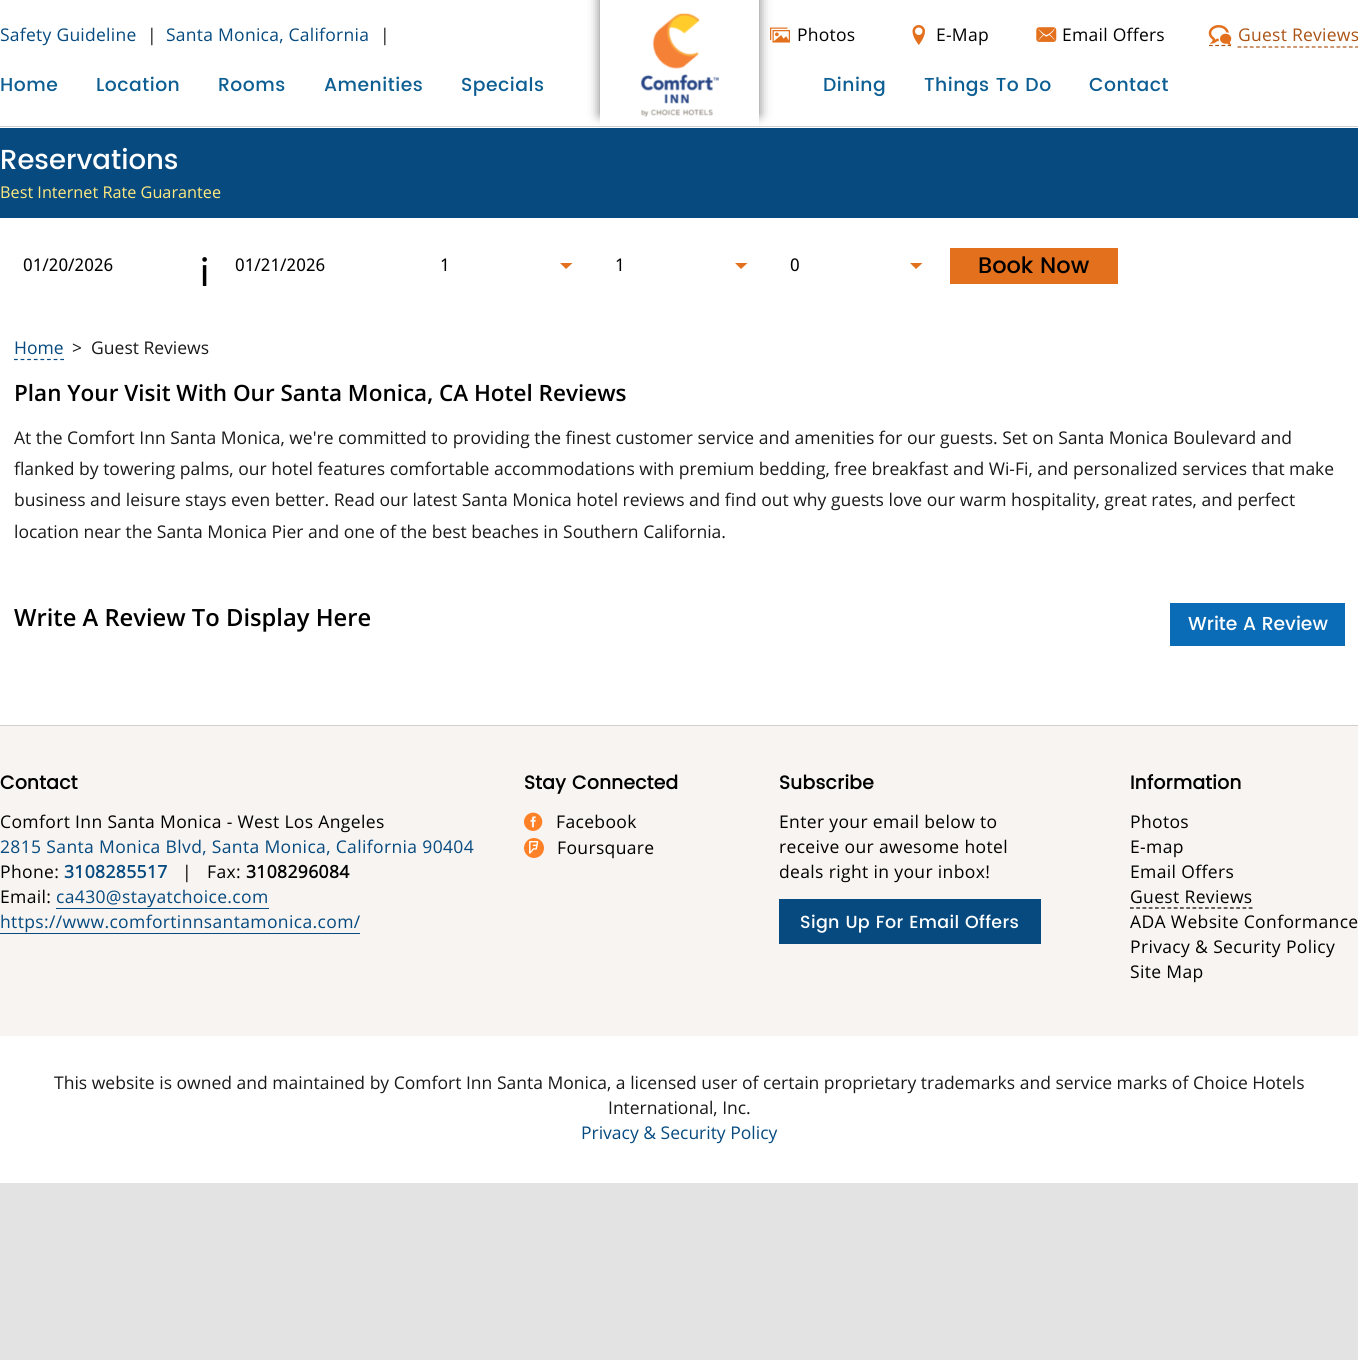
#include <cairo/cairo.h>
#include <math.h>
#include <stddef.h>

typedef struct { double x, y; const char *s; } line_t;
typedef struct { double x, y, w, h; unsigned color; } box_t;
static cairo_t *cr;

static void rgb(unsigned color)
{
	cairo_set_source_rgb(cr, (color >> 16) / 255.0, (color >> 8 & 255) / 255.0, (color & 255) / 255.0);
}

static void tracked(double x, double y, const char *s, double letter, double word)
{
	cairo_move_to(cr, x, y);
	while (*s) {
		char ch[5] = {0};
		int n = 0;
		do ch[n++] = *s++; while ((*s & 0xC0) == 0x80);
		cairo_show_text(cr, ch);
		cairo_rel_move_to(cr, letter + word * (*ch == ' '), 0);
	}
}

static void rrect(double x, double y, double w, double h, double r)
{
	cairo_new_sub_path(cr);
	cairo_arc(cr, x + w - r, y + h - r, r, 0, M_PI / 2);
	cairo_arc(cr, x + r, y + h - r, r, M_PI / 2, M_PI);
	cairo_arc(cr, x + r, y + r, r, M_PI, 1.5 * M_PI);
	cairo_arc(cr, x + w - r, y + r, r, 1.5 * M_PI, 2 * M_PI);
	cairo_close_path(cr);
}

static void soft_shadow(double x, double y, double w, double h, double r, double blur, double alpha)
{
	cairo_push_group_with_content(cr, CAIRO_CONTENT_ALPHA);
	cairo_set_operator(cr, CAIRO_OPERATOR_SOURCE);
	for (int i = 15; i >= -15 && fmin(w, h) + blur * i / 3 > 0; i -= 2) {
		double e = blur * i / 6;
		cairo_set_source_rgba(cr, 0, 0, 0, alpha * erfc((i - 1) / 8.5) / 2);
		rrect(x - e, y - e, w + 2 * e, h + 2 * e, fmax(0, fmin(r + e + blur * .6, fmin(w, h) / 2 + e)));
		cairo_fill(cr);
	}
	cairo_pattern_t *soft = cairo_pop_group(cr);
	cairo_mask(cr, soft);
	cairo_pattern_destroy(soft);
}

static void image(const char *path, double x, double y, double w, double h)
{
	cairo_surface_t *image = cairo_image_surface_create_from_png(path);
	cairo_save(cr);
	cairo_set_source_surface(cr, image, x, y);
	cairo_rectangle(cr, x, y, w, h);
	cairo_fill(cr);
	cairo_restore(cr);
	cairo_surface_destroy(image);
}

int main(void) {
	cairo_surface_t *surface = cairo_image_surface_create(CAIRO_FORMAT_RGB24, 1358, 1360);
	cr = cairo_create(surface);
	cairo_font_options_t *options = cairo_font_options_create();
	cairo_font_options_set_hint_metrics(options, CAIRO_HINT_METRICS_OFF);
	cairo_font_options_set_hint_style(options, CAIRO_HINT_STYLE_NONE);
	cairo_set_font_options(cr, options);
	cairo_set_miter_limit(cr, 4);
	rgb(0xe3e3e3);
	cairo_paint(cr);
	{
		static const box_t items[] = {
			{0, 0, 1358, 128, 0xffffff},
			{0, 126, 1358, 1, 0xd1d1d1},
			{0, 128, 1358, 90, 0x064a7f},
		};
		for (size_t i = 0; i < sizeof items / sizeof *items; i++) {
			rgb(items[i].color);
			cairo_rectangle(cr, items[i].x, items[i].y, items[i].w, items[i].h);
			cairo_fill(cr);
		}
	}
	rgb(0x777575);
	soft_shadow(600, -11, 159, 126, 0, 6, 1);
	rgb(0xffffff);
	cairo_rectangle(cr, 600, 0, 159, 126);
	cairo_fill(cr);
	image("img/1.png", 640, 13, 79, 104);
	image("img/2.png", 770, 27, 20, 16);
	image("img/3.png", 912, 25, 13, 20);
	image("img/4.png", 1036, 27, 21, 15);
	cairo_new_path(cr);
	cairo_move_to(cr, 1209, 45.5);
	cairo_line_to(cr, 1231, 45.5);
	rgb(0xab5415);
	cairo_set_line_width(cr, 1.2);
	cairo_set_dash(cr, (double[]){3.75, 2.5}, 2, 0);
	cairo_stroke(cr);
	cairo_new_path(cr);
	cairo_move_to(cr, 1237.5, 47);
	cairo_line_to(cr, 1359, 47);
	cairo_set_dash(cr, (double[]){3.75, 2.44}, 2, 0);
	cairo_stroke(cr);
	image("img/5.png", 1208, 25, 24, 20);
	rgb(0xffffff);
	cairo_rectangle(cr, 0, 218, 1358, 507);
	cairo_fill(cr);
	rgb(0xe3701d);
	cairo_new_path(cr);
	cairo_move_to(cr, 560, 263);
	cairo_line_to(cr, 572.5, 263);
	cairo_line_to(cr, 566, 269);
	cairo_close_path(cr);
	cairo_fill(cr);
	cairo_new_path(cr);
	cairo_move_to(cr, 735, 263);
	cairo_line_to(cr, 747.5, 263);
	cairo_line_to(cr, 741, 269);
	cairo_close_path(cr);
	cairo_fill(cr);
	cairo_new_path(cr);
	cairo_move_to(cr, 910, 263);
	cairo_line_to(cr, 922.5, 263);
	cairo_line_to(cr, 916, 269);
	cairo_close_path(cr);
	cairo_fill(cr);
	cairo_rectangle(cr, 950, 248, 168, 36);
	cairo_fill(cr);
	cairo_new_path(cr);
	cairo_move_to(cr, 14, 359.5);
	cairo_line_to(cr, 64, 359.5);
	rgb(0x064a7f);
	cairo_set_dash(cr, (double[]){3.75, 2.86}, 2, 0);
	cairo_stroke(cr);
	{
		static const box_t items[] = {
			{1170, 603, 175, 43, 0x0a6cb6},
			{0, 726, 1358, 310, 0xf7f4f1},
			{0, 725, 1358, 1, 0xd0d0d0},
			{56, 908, 213, 1, 0x064a7f},
			{0, 933, 360, 1, 0x064a7f},
		};
		for (size_t i = 0; i < sizeof items / sizeof *items; i++) {
			rgb(items[i].color);
			cairo_rectangle(cr, items[i].x, items[i].y, items[i].w, items[i].h);
			cairo_fill(cr);
		}
	}
	image("img/6.png", 524, 812, 19, 19);
	rgb(0xff8127);
	cairo_arc(cr, 534, 848, 10, 0, 2 * M_PI);
	cairo_fill(cr);
	image("img/7.png", 529, 841, 10, 13);
	rgb(0x064a7f);
	cairo_rectangle(cr, 779, 899, 262, 45);
	cairo_fill(cr);
	cairo_new_path(cr);
	cairo_move_to(cr, 1130, 908);
	cairo_line_to(cr, 1252.5, 908);
	rgb(0x000000);
	cairo_set_dash(cr, (double[]){3.75, 2.5}, 2, 0);
	cairo_stroke(cr);
	rgb(0xffffff);
	cairo_rectangle(cr, 0, 1036, 1358, 147);
	cairo_fill(cr);
	cairo_select_font_face(cr, "Open Sans", CAIRO_FONT_SLANT_NORMAL, CAIRO_FONT_WEIGHT_NORMAL);
	cairo_set_font_size(cr, 17.5);
	rgb(0x064a7f);
	tracked(0, 41, "Safety Guideline", 0.25, 0);
	rgb(0x1a1a1a);
	tracked(147, 41, "|", 0.25, 0);
	rgb(0x064a7f);
	tracked(166, 41, "Santa Monica, California", 0.25, 0);
	rgb(0x1a1a1a);
	tracked(380, 41, "|", 0.25, 0);
	rgb(0x000000);
	{
		static const line_t items[] = {
			{797, 41, "Photos"},
			{936, 41, "E-Map"},
			{1062, 41, "Email Offers"},
		};
		for (size_t i = 0; i < sizeof items / sizeof *items; i++) {
			tracked(items[i].x, items[i].y, items[i].s, 0.25, 0);
		}
	}
	rgb(0xab5415);
	tracked(1238, 41, "Guest Reviews", 0.25, 0);
	cairo_select_font_face(cr, "Poppins Medium", CAIRO_FONT_SLANT_NORMAL, CAIRO_FONT_WEIGHT_NORMAL);
	cairo_set_font_size(cr, 18.75);
	rgb(0x0d5e92);
	{
		static const line_t items[] = {
			{0, 91, "Home"},
			{96, 91, "Location"},
			{218, 91, "Rooms"},
			{324, 91, "Amenities"},
			{461, 91, "Specials"},
			{823, 91, "Dining"},
			{924, 91, "Things To Do"},
			{1089, 91, "Contact"},
		};
		for (size_t i = 0; i < sizeof items / sizeof *items; i++) {
			tracked(items[i].x, items[i].y, items[i].s, 0.5, 0);
		}
	}
	cairo_set_font_size(cr, 27.5);
	rgb(0xffffff);
	cairo_move_to(cr, 0, 169);
	cairo_show_text(cr, "Reservations");
	cairo_select_font_face(cr, "Open Sans", CAIRO_FONT_SLANT_NORMAL, CAIRO_FONT_WEIGHT_NORMAL);
	cairo_set_font_size(cr, 16.25);
	rgb(0xffea80);
	cairo_move_to(cr, 0, 198);
	cairo_show_text(cr, "Best Internet Rate Guarantee");
	cairo_select_font_face(cr, "Droid Sans", CAIRO_FONT_SLANT_NORMAL, CAIRO_FONT_WEIGHT_NORMAL);
	cairo_set_font_size(cr, 17.5);
	rgb(0x000000);
	{
		static const line_t items[] = {
			{23, 271, "01/20/2026"},
			{235, 271, "01/21/2026"},
			{440, 271, "1"},
			{615, 271, "1"},
			{790, 271, "0"},
		};
		for (size_t i = 0; i < sizeof items / sizeof *items; i++) {
			cairo_move_to(cr, items[i].x, items[i].y);
			cairo_show_text(cr, items[i].s);
		}
	}
	cairo_select_font_face(cr, "Poppins Medium", CAIRO_FONT_SLANT_NORMAL, CAIRO_FONT_WEIGHT_NORMAL);
	cairo_set_font_size(cr, 22.5);
	cairo_move_to(cr, 978, 273);
	cairo_show_text(cr, "Book Now");
	cairo_select_font_face(cr, "Poppins", CAIRO_FONT_SLANT_NORMAL, CAIRO_FONT_WEIGHT_NORMAL);
	cairo_set_font_size(cr, 38);
	cairo_move_to(cr, 200, 286);
	cairo_show_text(cr, "i");
	cairo_select_font_face(cr, "Open Sans", CAIRO_FONT_SLANT_NORMAL, CAIRO_FONT_WEIGHT_NORMAL);
	cairo_set_font_size(cr, 17.5);
	rgb(0x064a7f);
	cairo_move_to(cr, 14, 354);
	cairo_show_text(cr, "Home");
	rgb(0x1a1a1a);
	cairo_move_to(cr, 72, 354);
	cairo_show_text(cr, ">  Guest Reviews");
	cairo_select_font_face(cr, "Open Sans SemiBold", CAIRO_FONT_SLANT_NORMAL, CAIRO_FONT_WEIGHT_NORMAL);
	cairo_set_font_size(cr, 22.5);
	rgb(0x000000);
	cairo_move_to(cr, 14, 401);
	cairo_show_text(cr, "Plan Your Visit With Our Santa Monica, CA Hotel Reviews");
	cairo_select_font_face(cr, "Open Sans", CAIRO_FONT_SLANT_NORMAL, CAIRO_FONT_WEIGHT_NORMAL);
	cairo_set_font_size(cr, 17.5);
	rgb(0x1a1a1a);
	{
		static const line_t items[] = {
			{14, 444, "At the Comfort Inn Santa Monica, we're committed to providing the finest customer service and amenities for our guests. Set on Santa Monica Boulevard and"},
			{14, 475, "flanked by towering palms, our hotel features comfortable accommodations with premium bedding, free breakfast and Wi-Fi, and personalized services that make"},
			{14, 506, "business and leisure stays even better. Read our latest Santa Monica hotel reviews and find out why guests love our warm hospitality, great rates, and perfect"},
			{14, 538, "location near the Santa Monica Pier and one of the best beaches in Southern California."},
		};
		for (size_t i = 0; i < sizeof items / sizeof *items; i++) {
			cairo_move_to(cr, items[i].x, items[i].y);
			cairo_show_text(cr, items[i].s);
		}
	}
	cairo_select_font_face(cr, "Open Sans SemiBold", CAIRO_FONT_SLANT_NORMAL, CAIRO_FONT_WEIGHT_NORMAL);
	cairo_set_font_size(cr, 23.75);
	rgb(0x000000);
	cairo_move_to(cr, 14, 626);
	cairo_show_text(cr, "Write A Review To Display Here");
	cairo_select_font_face(cr, "Poppins Medium", CAIRO_FONT_SLANT_NORMAL, CAIRO_FONT_WEIGHT_NORMAL);
	cairo_set_font_size(cr, 18.75);
	rgb(0xffffff);
	cairo_move_to(cr, 1188, 630);
	cairo_show_text(cr, "Write A Review");
	cairo_select_font_face(cr, "Poppins", CAIRO_FONT_SLANT_NORMAL, CAIRO_FONT_WEIGHT_BOLD);
	rgb(0x000000);
	tracked(0, 789, "Contact", 0.35, 0);
	cairo_select_font_face(cr, "Open Sans", CAIRO_FONT_SLANT_NORMAL, CAIRO_FONT_WEIGHT_NORMAL);
	cairo_set_font_size(cr, 17.5);
	tracked(0, 828, "Comfort Inn Santa Monica - West Los Angeles", 0.35, 0);
	rgb(0x064a7f);
	tracked(0, 853, "2815 Santa Monica Blvd, Santa Monica, California 90404", 0.35, 0);
	rgb(0x000000);
	tracked(0, 878, "Phone:", 0.35, 0);
	cairo_select_font_face(cr, "Open Sans", CAIRO_FONT_SLANT_NORMAL, CAIRO_FONT_WEIGHT_BOLD);
	rgb(0x064a7f);
	tracked(64, 878, "3108285517", 0.35, 0);
	cairo_select_font_face(cr, "Open Sans", CAIRO_FONT_SLANT_NORMAL, CAIRO_FONT_WEIGHT_NORMAL);
	rgb(0x000000);
	tracked(182, 878, "|", 0.35, 0);
	tracked(207, 878, "Fax:", 0.35, 0);
	cairo_select_font_face(cr, "Open Sans", CAIRO_FONT_SLANT_NORMAL, CAIRO_FONT_WEIGHT_BOLD);
	tracked(246, 878, "3108296084", 0.35, 0);
	cairo_select_font_face(cr, "Open Sans", CAIRO_FONT_SLANT_NORMAL, CAIRO_FONT_WEIGHT_NORMAL);
	tracked(0, 903, "Email:", 0.35, 0);
	rgb(0x064a7f);
	tracked(56, 903, "ca430@stayatchoice.com", 0.35, 0);
	tracked(0, 928, "https://www.comfortinnsantamonica.com/", 0.35, 0);
	cairo_select_font_face(cr, "Poppins", CAIRO_FONT_SLANT_NORMAL, CAIRO_FONT_WEIGHT_BOLD);
	cairo_set_font_size(cr, 18.75);
	rgb(0x000000);
	tracked(524, 789, "Stay Connected", 0.35, 0);
	cairo_select_font_face(cr, "Open Sans", CAIRO_FONT_SLANT_NORMAL, CAIRO_FONT_WEIGHT_NORMAL);
	cairo_set_font_size(cr, 17.5);
	tracked(556, 828, "Facebook", 0.35, 0);
	tracked(557, 854, "Foursquare", 0.35, 0);
	cairo_select_font_face(cr, "Poppins", CAIRO_FONT_SLANT_NORMAL, CAIRO_FONT_WEIGHT_BOLD);
	cairo_set_font_size(cr, 18.75);
	tracked(779, 789, "Subscribe", 0.35, 0);
	cairo_select_font_face(cr, "Open Sans", CAIRO_FONT_SLANT_NORMAL, CAIRO_FONT_WEIGHT_NORMAL);
	cairo_set_font_size(cr, 17.5);
	{
		static const line_t items[] = {
			{779, 828, "Enter your email below to"},
			{779, 853, "receive our awesome hotel"},
			{779, 878, "deals right in your inbox!"},
		};
		for (size_t i = 0; i < sizeof items / sizeof *items; i++) {
			tracked(items[i].x, items[i].y, items[i].s, 0.35, 0);
		}
	}
	cairo_select_font_face(cr, "Poppins Medium", CAIRO_FONT_SLANT_NORMAL, CAIRO_FONT_WEIGHT_NORMAL);
	rgb(0xffffff);
	tracked(800, 928, "Sign Up For Email Offers", 0.35, 0);
	cairo_select_font_face(cr, "Poppins", CAIRO_FONT_SLANT_NORMAL, CAIRO_FONT_WEIGHT_BOLD);
	cairo_set_font_size(cr, 18.75);
	rgb(0x000000);
	tracked(1130, 789, "Information", 0.35, 0);
	cairo_select_font_face(cr, "Open Sans", CAIRO_FONT_SLANT_NORMAL, CAIRO_FONT_WEIGHT_NORMAL);
	cairo_set_font_size(cr, 17.5);
	{
		static const line_t items[] = {
			{1130, 828, "Photos"},
			{1130, 853, "E-map"},
			{1130, 878, "Email Offers"},
			{1130, 903, "Guest Reviews"},
			{1130, 928, "ADA Website Conformance"},
			{1130, 953, "Privacy & Security Policy"},
			{1130, 978, "Site Map"},
		};
		for (size_t i = 0; i < sizeof items / sizeof *items; i++) {
			tracked(items[i].x, items[i].y, items[i].s, 0.35, 0);
		}
	}
	rgb(0x1a1a1a);
	cairo_move_to(cr, 54, 1089);
	cairo_show_text(cr, "This website is owned and maintained by Comfort Inn Santa Monica, a licensed user of certain proprietary trademarks and service marks of Choice Hotels");
	cairo_move_to(cr, 608, 1114);
	cairo_show_text(cr, "International, Inc.");
	rgb(0x064a7f);
	cairo_move_to(cr, 581, 1139);
	cairo_show_text(cr, "Privacy & Security Policy");
	cairo_surface_write_to_png(surface, "page.png");
	cairo_font_options_destroy(options);
	cairo_destroy(cr);
	cairo_surface_destroy(surface);
	return 0;
}
